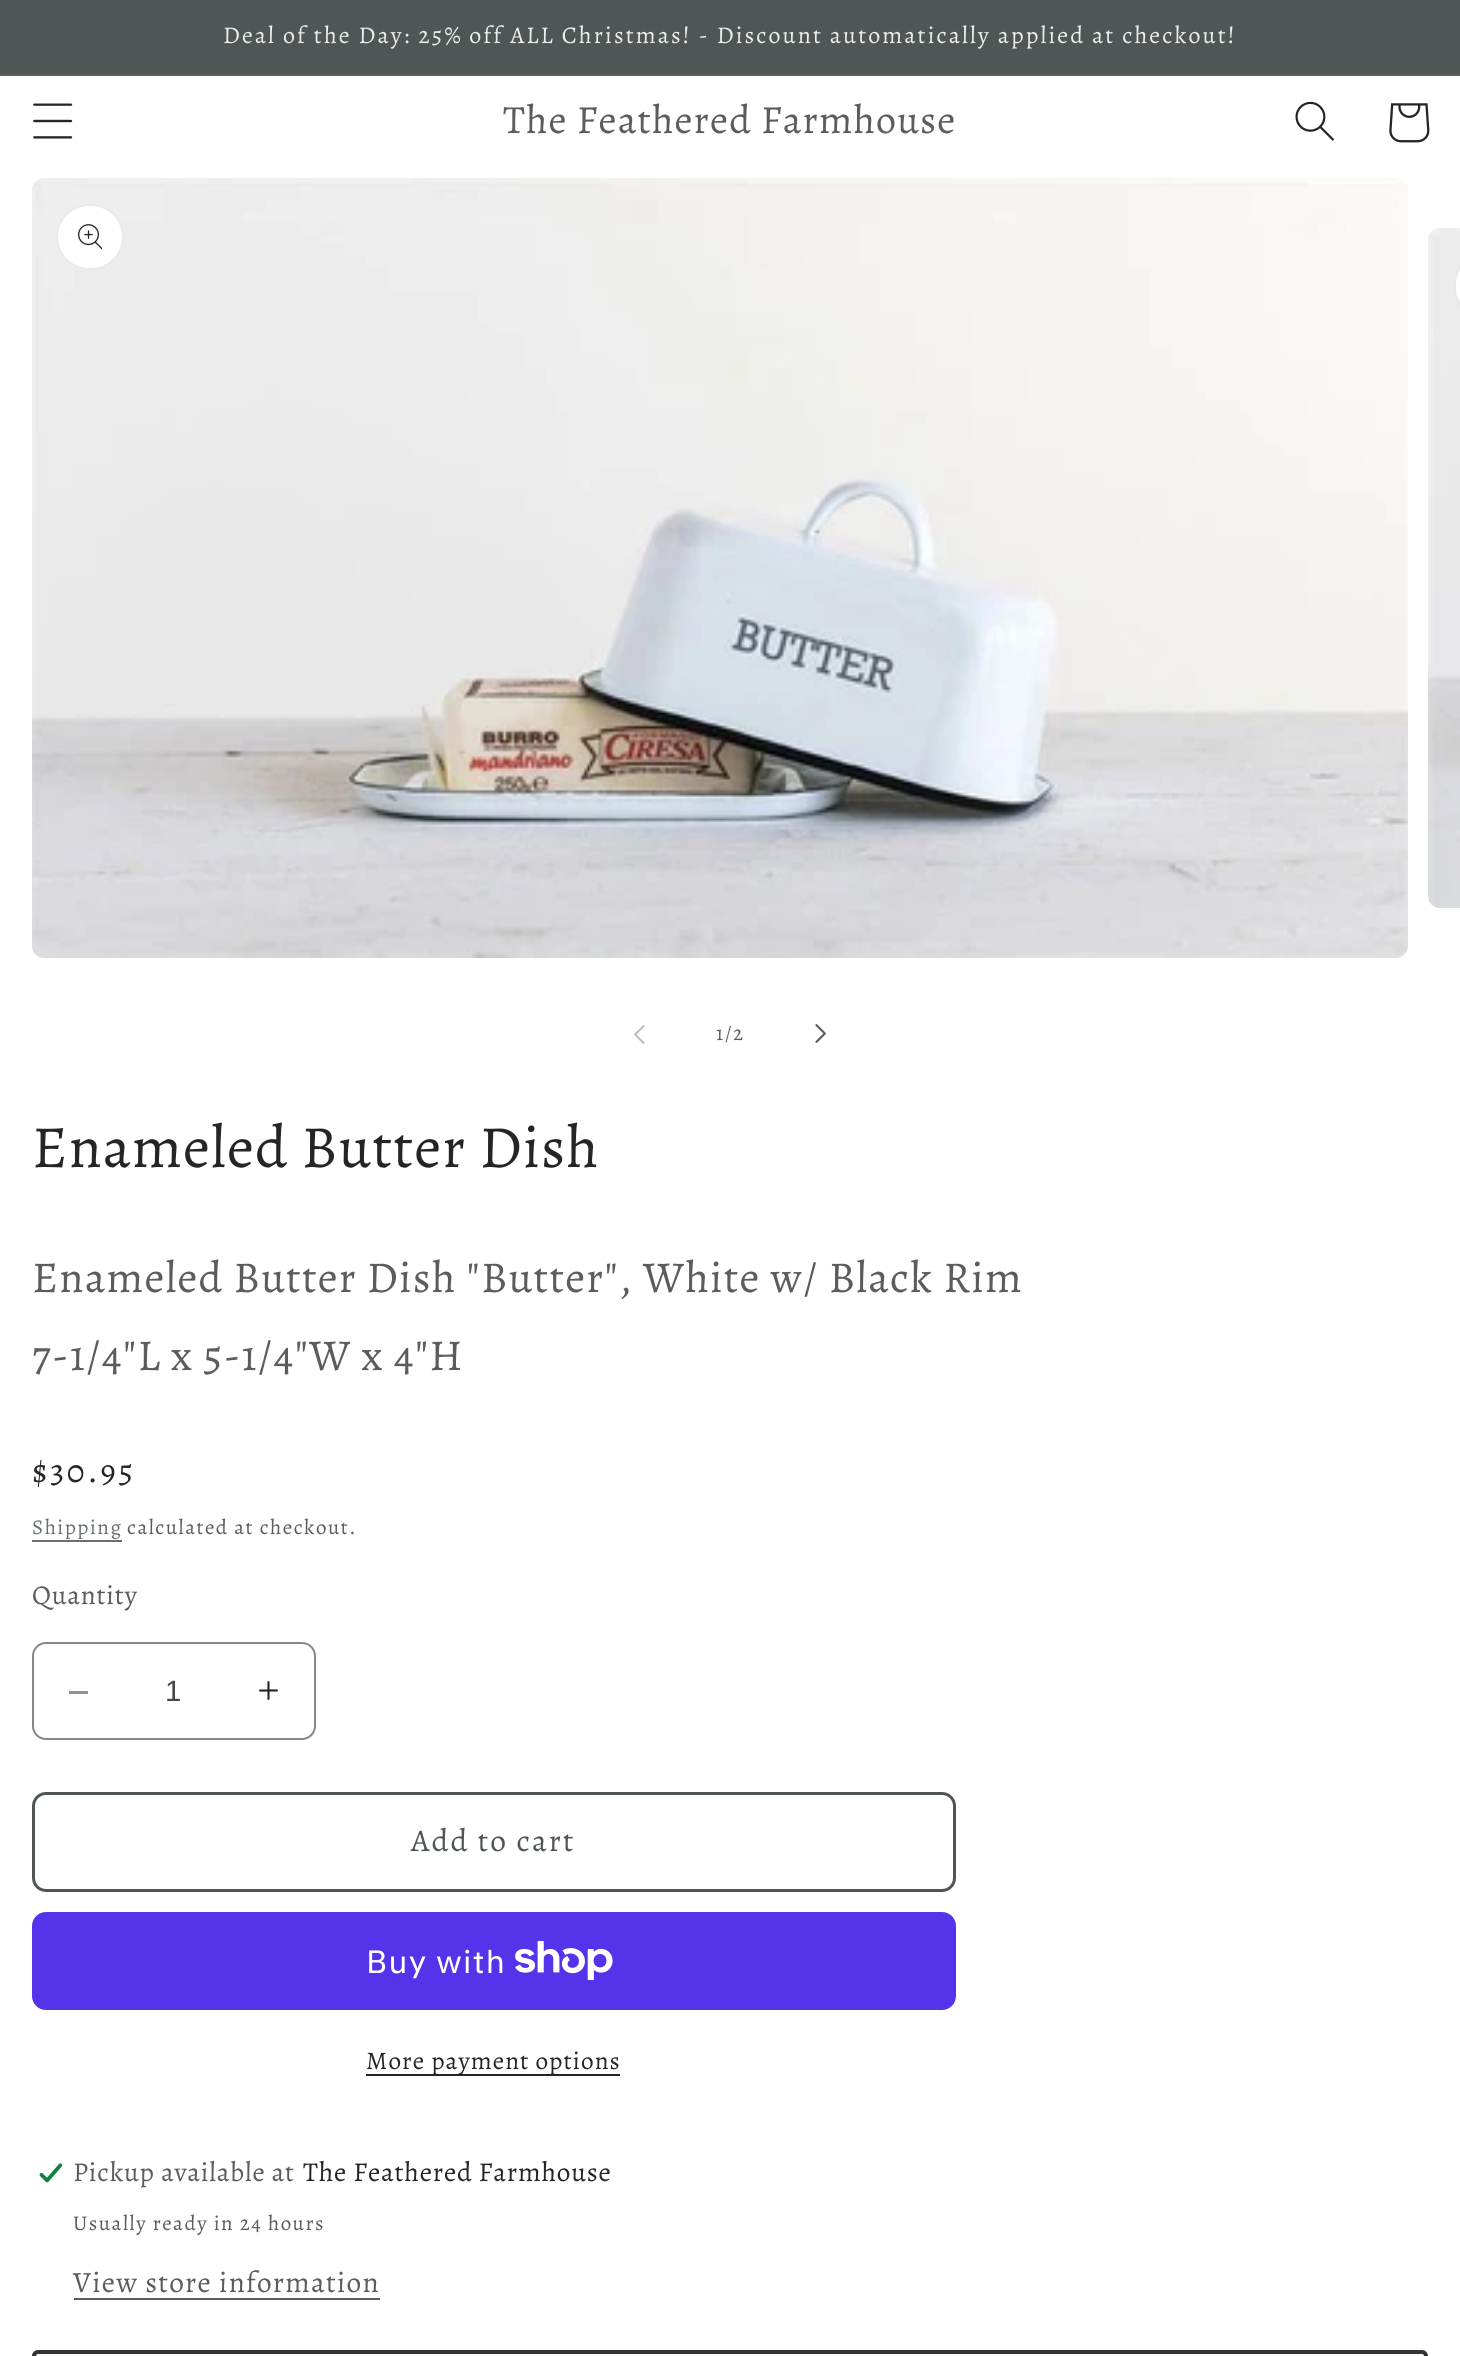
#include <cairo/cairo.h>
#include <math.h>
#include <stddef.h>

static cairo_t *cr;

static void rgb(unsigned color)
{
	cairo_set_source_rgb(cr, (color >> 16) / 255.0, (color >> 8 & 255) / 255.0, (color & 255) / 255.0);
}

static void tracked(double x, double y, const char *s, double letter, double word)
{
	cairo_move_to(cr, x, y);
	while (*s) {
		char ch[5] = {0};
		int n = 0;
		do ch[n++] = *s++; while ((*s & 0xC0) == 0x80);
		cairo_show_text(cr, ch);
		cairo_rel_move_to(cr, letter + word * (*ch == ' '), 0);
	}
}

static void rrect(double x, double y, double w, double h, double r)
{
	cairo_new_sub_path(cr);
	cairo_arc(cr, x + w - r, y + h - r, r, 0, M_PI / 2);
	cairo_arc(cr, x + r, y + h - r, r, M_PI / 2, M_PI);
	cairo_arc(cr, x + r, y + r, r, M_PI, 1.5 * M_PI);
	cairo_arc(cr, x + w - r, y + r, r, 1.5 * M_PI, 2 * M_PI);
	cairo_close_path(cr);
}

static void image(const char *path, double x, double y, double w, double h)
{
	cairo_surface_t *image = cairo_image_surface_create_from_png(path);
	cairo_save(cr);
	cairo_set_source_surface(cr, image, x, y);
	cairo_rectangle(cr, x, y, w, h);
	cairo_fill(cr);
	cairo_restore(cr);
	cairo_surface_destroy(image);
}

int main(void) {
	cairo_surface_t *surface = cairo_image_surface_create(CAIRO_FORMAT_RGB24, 1460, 2356);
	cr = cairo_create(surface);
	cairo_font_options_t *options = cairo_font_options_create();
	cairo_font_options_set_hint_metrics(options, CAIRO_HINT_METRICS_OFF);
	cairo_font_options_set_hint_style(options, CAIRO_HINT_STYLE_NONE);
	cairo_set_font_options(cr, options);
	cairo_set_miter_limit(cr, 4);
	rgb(0xffffff);
	cairo_paint(cr);
	rgb(0x505655);
	cairo_rectangle(cr, 0, 0, 1460, 74);
	cairo_fill(cr);
	rgb(0x5d6261);
	cairo_rectangle(cr, 0, 74, 1460, 2);
	cairo_fill(cr);
	image("img/1.png", 33, 103, 40, 36);
	image("img/2.png", 1295, 101, 39, 40);
	image("img/3.png", 1389, 103, 41, 40);
	image("img/4.png", 32, 178, 1376, 780);
	rgb(0xffffff);
	rrect(56, 204, 68, 66, 33);
	cairo_fill(cr);
	rrect(57, 205, 66, 64, 32);
	cairo_set_source_rgba(cr, 0.145, 0.145, 0.145, 0.1);
	cairo_stroke(cr);
	image("img/5.png", 78, 224, 24, 26);
	image("img/6.png", 1428, 228, 32, 680);
	rgb(0xffffff);
	cairo_new_path(cr);
	cairo_move_to(cr, 1487, 252);
	cairo_line_to(cr, 1460, 252);
	cairo_line_to(cr, 1460, 320);
	cairo_line_to(cr, 1487, 320);
	cairo_curve_to(cr, 1469, 320, 1454, 305, 1454, 287);
	cairo_line_to(cr, 1454, 285);
	cairo_curve_to(cr, 1454, 267, 1469, 252, 1487, 252);
	cairo_close_path(cr);
	cairo_fill(cr);
	rrect(1455, 253, 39, 66, 32);
	cairo_set_source_rgba(cr, 0.145, 0.145, 0.145, 0.1);
	cairo_stroke(cr);
	image("img/7.png", 634, 1025, 11, 19);
	image("img/8.png", 815, 1024, 11, 19);
	rgb(0x6a6f6f);
	cairo_rectangle(cr, 32, 1540, 90, 2);
	cairo_fill(cr);
	rgb(0x929292);
	cairo_rectangle(cr, 69, 1691, 19, 3);
	cairo_fill(cr);
	image("img/9.png", 259, 1681, 19, 19);
	rrect(33, 1643, 282, 96, 13);
	rgb(0x878787);
	cairo_stroke(cr);
	rrect(33.5, 1793.5, 921, 97, 12.5);
	rgb(0x505655);
	cairo_set_line_width(cr, 3);
	cairo_stroke(cr);
	rgb(0x5433eb);
	rrect(32, 1912, 924, 98, 14);
	cairo_fill(cr);
	image("img/10.png", 515, 1941, 98, 39);
	rgb(0x252525);
	cairo_rectangle(cr, 366, 2074, 254, 2);
	cairo_fill(cr);
	image("img/11.png", 39, 2163, 24, 20);
	rgb(0x5c5c5c);
	cairo_rectangle(cr, 74, 2298, 306, 2);
	cairo_fill(cr);
	rrect(34, 2352, 1392, 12, 4);
	rgb(0x333333);
	cairo_set_line_width(cr, 4);
	cairo_stroke(cr);
	cairo_select_font_face(cr, "Alegreya", CAIRO_FONT_SLANT_NORMAL, CAIRO_FONT_WEIGHT_NORMAL);
	cairo_set_font_size(cr, 24);
	rgb(0xefecec);
	tracked(223, 43, "Deal of the Day: 25% off ALL Christmas! - Discount automatically applied at checkout!", 2.1, 0);
	cairo_set_font_size(cr, 40);
	rgb(0x5c5c5c);
	tracked(503, 133, "The Feathered Farmhouse", 1.2, 0);
	cairo_set_font_size(cr, 21);
	tracked(716, 1040, "1/2", 1.5, 0);
	cairo_set_font_size(cr, 60);
	rgb(0x252525);
	tracked(32, 1167, "Enameled Butter Dish", 1.2, 0);
	cairo_set_font_size(cr, 44.1);
	rgb(0x5c5c5c);
	tracked(32, 1292, "Enameled Butter Dish \"Butter\", White w/ Black Rim", 1.25, 0);
	tracked(32, 1370, "7-1/4\"L x 5-1/4\"W x 4\"H", 1.25, 0);
	cairo_set_font_size(cr, 33.5);
	rgb(0x252525);
	tracked(32, 1482, "$30.95", 2.75, 0);
	cairo_set_font_size(cr, 21);
	rgb(0x6a6f6f);
	tracked(32, 1534, "Shipping", 1.5, 0);
	rgb(0x5c5c5c);
	tracked(127, 1534, "calculated at checkout.", 1.5, 0);
	cairo_set_font_size(cr, 27.25);
	tracked(32, 1604, "Quantity", 0.8, 0);
	cairo_select_font_face(cr, "Liberation Sans", CAIRO_FONT_SLANT_NORMAL, CAIRO_FONT_WEIGHT_NORMAL);
	cairo_set_font_size(cr, 29.4);
	rgb(0x464646);
	cairo_move_to(cr, 165, 1701);
	cairo_show_text(cr, "1");
	cairo_select_font_face(cr, "Alegreya", CAIRO_FONT_SLANT_NORMAL, CAIRO_FONT_WEIGHT_NORMAL);
	cairo_set_font_size(cr, 31.5);
	rgb(0x505655);
	tracked(411, 1851, "Add to cart", 2.1, 0);
	cairo_select_font_face(cr, "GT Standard", CAIRO_FONT_SLANT_NORMAL, CAIRO_FONT_WEIGHT_NORMAL);
	cairo_set_font_size(cr, 32);
	rgb(0xffffff);
	tracked(366, 1973, "Buy with", 1.25, 0);
	cairo_select_font_face(cr, "Alegreya", CAIRO_FONT_SLANT_NORMAL, CAIRO_FONT_WEIGHT_NORMAL);
	cairo_set_font_size(cr, 25.25);
	rgb(0x252525);
	tracked(366, 2069, "More payment options", 1.05, 0);
	cairo_set_font_size(cr, 27.25);
	rgb(0x5c5c5c);
	tracked(73, 2181, "Pickup available at", 0.8, 0);
	rgb(0x252525);
	tracked(303, 2181, "The Feathered Farmhouse", 0.8, 0);
	cairo_set_font_size(cr, 21);
	rgb(0x5c5c5c);
	tracked(73, 2230, "Usually ready in 24 hours", 1.5, 0);
	cairo_set_font_size(cr, 29.4);
	tracked(73, 2292, "View store information", 1.25, 0);
	cairo_surface_write_to_png(surface, "page.png");
	cairo_font_options_destroy(options);
	cairo_destroy(cr);
	cairo_surface_destroy(surface);
	return 0;
}
